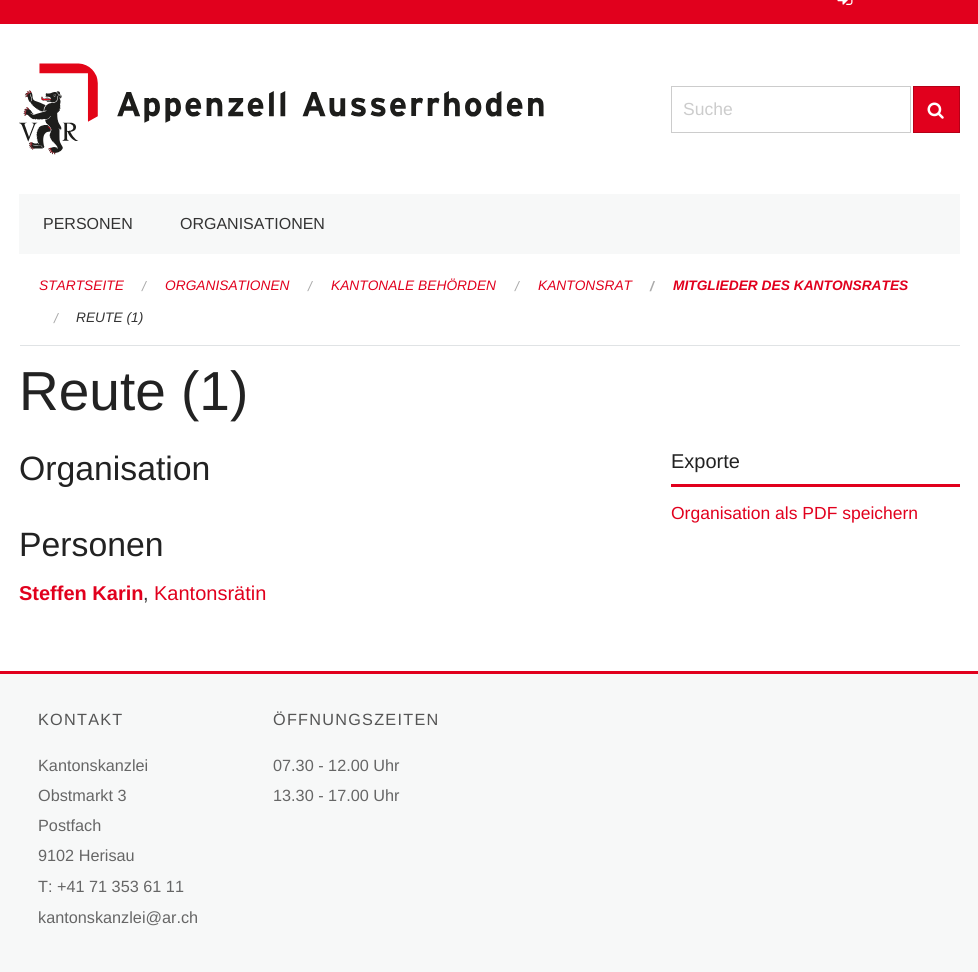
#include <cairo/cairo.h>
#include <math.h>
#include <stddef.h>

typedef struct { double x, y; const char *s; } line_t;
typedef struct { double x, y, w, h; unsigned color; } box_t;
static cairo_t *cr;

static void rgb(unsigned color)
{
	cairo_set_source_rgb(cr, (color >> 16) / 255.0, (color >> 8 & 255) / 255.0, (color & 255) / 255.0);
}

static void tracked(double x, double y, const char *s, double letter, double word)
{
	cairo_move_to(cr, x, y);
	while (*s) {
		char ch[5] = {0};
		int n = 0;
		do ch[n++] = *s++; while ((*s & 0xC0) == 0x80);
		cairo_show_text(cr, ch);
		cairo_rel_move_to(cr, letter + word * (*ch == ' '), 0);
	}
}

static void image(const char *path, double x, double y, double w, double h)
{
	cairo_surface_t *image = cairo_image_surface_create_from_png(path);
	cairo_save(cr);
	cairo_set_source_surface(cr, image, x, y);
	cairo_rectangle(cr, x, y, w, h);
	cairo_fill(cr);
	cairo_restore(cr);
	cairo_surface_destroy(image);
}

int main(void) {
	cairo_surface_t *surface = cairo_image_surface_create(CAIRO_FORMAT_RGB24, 978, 972);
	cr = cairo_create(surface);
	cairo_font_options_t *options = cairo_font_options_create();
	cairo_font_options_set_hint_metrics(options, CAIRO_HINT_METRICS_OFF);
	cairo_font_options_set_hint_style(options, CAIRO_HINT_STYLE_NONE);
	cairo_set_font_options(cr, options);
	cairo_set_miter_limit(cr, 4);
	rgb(0xffffff);
	cairo_paint(cr);
	rgb(0xe1001d);
	cairo_rectangle(cr, 0, 0, 978, 24);
	cairo_fill(cr);
	image("img/1.png", 837, 0, 16, 5);
	image("img/2.png", 19, 63, 525, 92);
	cairo_rectangle(cr, 671.5, 86.5, 239, 46);
	rgb(0xcccccc);
	cairo_set_line_width(cr, 1);
	cairo_stroke(cr);
	rgb(0xe1001d);
	cairo_rectangle(cr, 913.5, 86.5, 46, 46);
	cairo_fill_preserve(cr);
	rgb(0xb40017);
	cairo_stroke(cr);
	image("img/3.png", 927, 102, 17, 17);
	{
		static const box_t items[] = {
			{19, 194, 941, 60, 0xf7f8f8},
			{20, 345, 940, 1, 0xe0e3e5},
			{671, 484, 289, 3, 0xe1001d},
		};
		for (size_t i = 0; i < sizeof items / sizeof *items; i++) {
			rgb(items[i].color);
			cairo_rectangle(cr, items[i].x, items[i].y, items[i].w, items[i].h);
			cairo_fill(cr);
		}
	}
	cairo_new_path(cr);
	cairo_move_to(cr, 0, 671);
	cairo_line_to(cr, 0, 674);
	cairo_line_to(cr, 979, 674);
	cairo_line_to(cr, 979, 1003);
	cairo_line_to(cr, 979, 671);
	cairo_close_path(cr);
	cairo_fill(cr);
	rgb(0xf7f8f8);
	cairo_rectangle(cr, 0, 674, 978, 298);
	cairo_fill(cr);
	cairo_select_font_face(cr, "Liberation Sans", CAIRO_FONT_SLANT_NORMAL, CAIRO_FONT_WEIGHT_NORMAL);
	cairo_set_font_size(cr, 17.5);
	rgb(0xcccccc);
	cairo_move_to(cr, 683, 115);
	cairo_show_text(cr, "Suche");
	cairo_set_font_size(cr, 16);
	rgb(0x333333);
	cairo_move_to(cr, 43, 229);
	cairo_show_text(cr, "PERSONEN");
	cairo_move_to(cr, 180, 229);
	cairo_show_text(cr, "ORGANISATIONEN");
	cairo_select_font_face(cr, "Liberation Sans", CAIRO_FONT_SLANT_ITALIC, CAIRO_FONT_WEIGHT_NORMAL);
	cairo_set_font_size(cr, 13.75);
	rgb(0xe1001d);
	cairo_move_to(cr, 39, 290);
	cairo_show_text(cr, "STARTSEITE");
	rgb(0xaaaaaa);
	cairo_move_to(cr, 142, 291);
	cairo_show_text(cr, "/");
	rgb(0xe1001d);
	cairo_move_to(cr, 165, 290);
	cairo_show_text(cr, "ORGANISATIONEN");
	rgb(0xaaaaaa);
	cairo_move_to(cr, 308, 291);
	cairo_show_text(cr, "/");
	rgb(0xe1001d);
	cairo_move_to(cr, 331, 290);
	cairo_show_text(cr, "KANTONALE BEHÖRDEN");
	rgb(0xaaaaaa);
	cairo_move_to(cr, 515, 291);
	cairo_show_text(cr, "/");
	rgb(0xe1001d);
	cairo_move_to(cr, 538, 290);
	cairo_show_text(cr, "KANTONSRAT");
	cairo_select_font_face(cr, "Liberation Sans", CAIRO_FONT_SLANT_ITALIC, CAIRO_FONT_WEIGHT_BOLD);
	rgb(0xaaaaaa);
	cairo_move_to(cr, 650, 291);
	cairo_show_text(cr, "/");
	rgb(0xe1001d);
	cairo_move_to(cr, 673, 290);
	cairo_show_text(cr, "MITGLIEDER DES KANTONSRATES");
	cairo_select_font_face(cr, "Liberation Sans", CAIRO_FONT_SLANT_ITALIC, CAIRO_FONT_WEIGHT_NORMAL);
	rgb(0xaaaaaa);
	cairo_move_to(cr, 54, 323);
	cairo_show_text(cr, "/");
	rgb(0x333333);
	cairo_move_to(cr, 76, 322);
	cairo_show_text(cr, "REUTE (1)");
	cairo_select_font_face(cr, "Liberation Sans", CAIRO_FONT_SLANT_NORMAL, CAIRO_FONT_WEIGHT_NORMAL);
	cairo_set_font_size(cr, 55);
	rgb(0x222222);
	cairo_move_to(cr, 19, 410);
	cairo_show_text(cr, "Reute (1)");
	cairo_set_font_size(cr, 33.75);
	cairo_move_to(cr, 19, 480);
	cairo_show_text(cr, "Organisation");
	cairo_move_to(cr, 19, 556);
	cairo_show_text(cr, "Personen");
	cairo_select_font_face(cr, "Liberation Sans", CAIRO_FONT_SLANT_NORMAL, CAIRO_FONT_WEIGHT_BOLD);
	cairo_set_font_size(cr, 20);
	rgb(0xe1001d);
	cairo_move_to(cr, 19, 600);
	cairo_show_text(cr, "Steffen Karin");
	cairo_select_font_face(cr, "Liberation Sans", CAIRO_FONT_SLANT_NORMAL, CAIRO_FONT_WEIGHT_NORMAL);
	rgb(0x333333);
	cairo_move_to(cr, 143, 600);
	cairo_show_text(cr, ",");
	rgb(0xe1001d);
	cairo_move_to(cr, 154, 600);
	cairo_show_text(cr, "Kantonsrätin");
	rgb(0x222222);
	cairo_move_to(cr, 671, 468);
	cairo_show_text(cr, "Exporte");
	cairo_set_font_size(cr, 17.5);
	rgb(0xe1001d);
	cairo_move_to(cr, 671, 519);
	cairo_show_text(cr, "Organisation als PDF speichern");
	cairo_set_font_size(cr, 16.25);
	rgb(0x555555);
	tracked(38, 725, "KONTAKT", 1.25, 0);
	rgb(0x666666);
	{
		static const line_t items[] = {
			{38, 771, "Kantonskanzlei"},
			{38, 801, "Obstmarkt 3"},
			{38, 831, "Postfach"},
			{38, 861, "9102 Herisau"},
			{38, 892, "T: +41 71 353 61 11"},
			{38, 923, "kantonskanzlei@ar.ch"},
		};
		for (size_t i = 0; i < sizeof items / sizeof *items; i++) {
			cairo_move_to(cr, items[i].x, items[i].y);
			cairo_show_text(cr, items[i].s);
		}
	}
	rgb(0x555555);
	tracked(273, 725, "ÖFFNUNGSZEITEN", 1.25, 0);
	rgb(0x666666);
	cairo_move_to(cr, 273, 771);
	cairo_show_text(cr, "07.30 - 12.00 Uhr");
	cairo_move_to(cr, 273, 801);
	cairo_show_text(cr, "13.30 - 17.00 Uhr");
	cairo_surface_write_to_png(surface, "page.png");
	cairo_font_options_destroy(options);
	cairo_destroy(cr);
	cairo_surface_destroy(surface);
	return 0;
}
